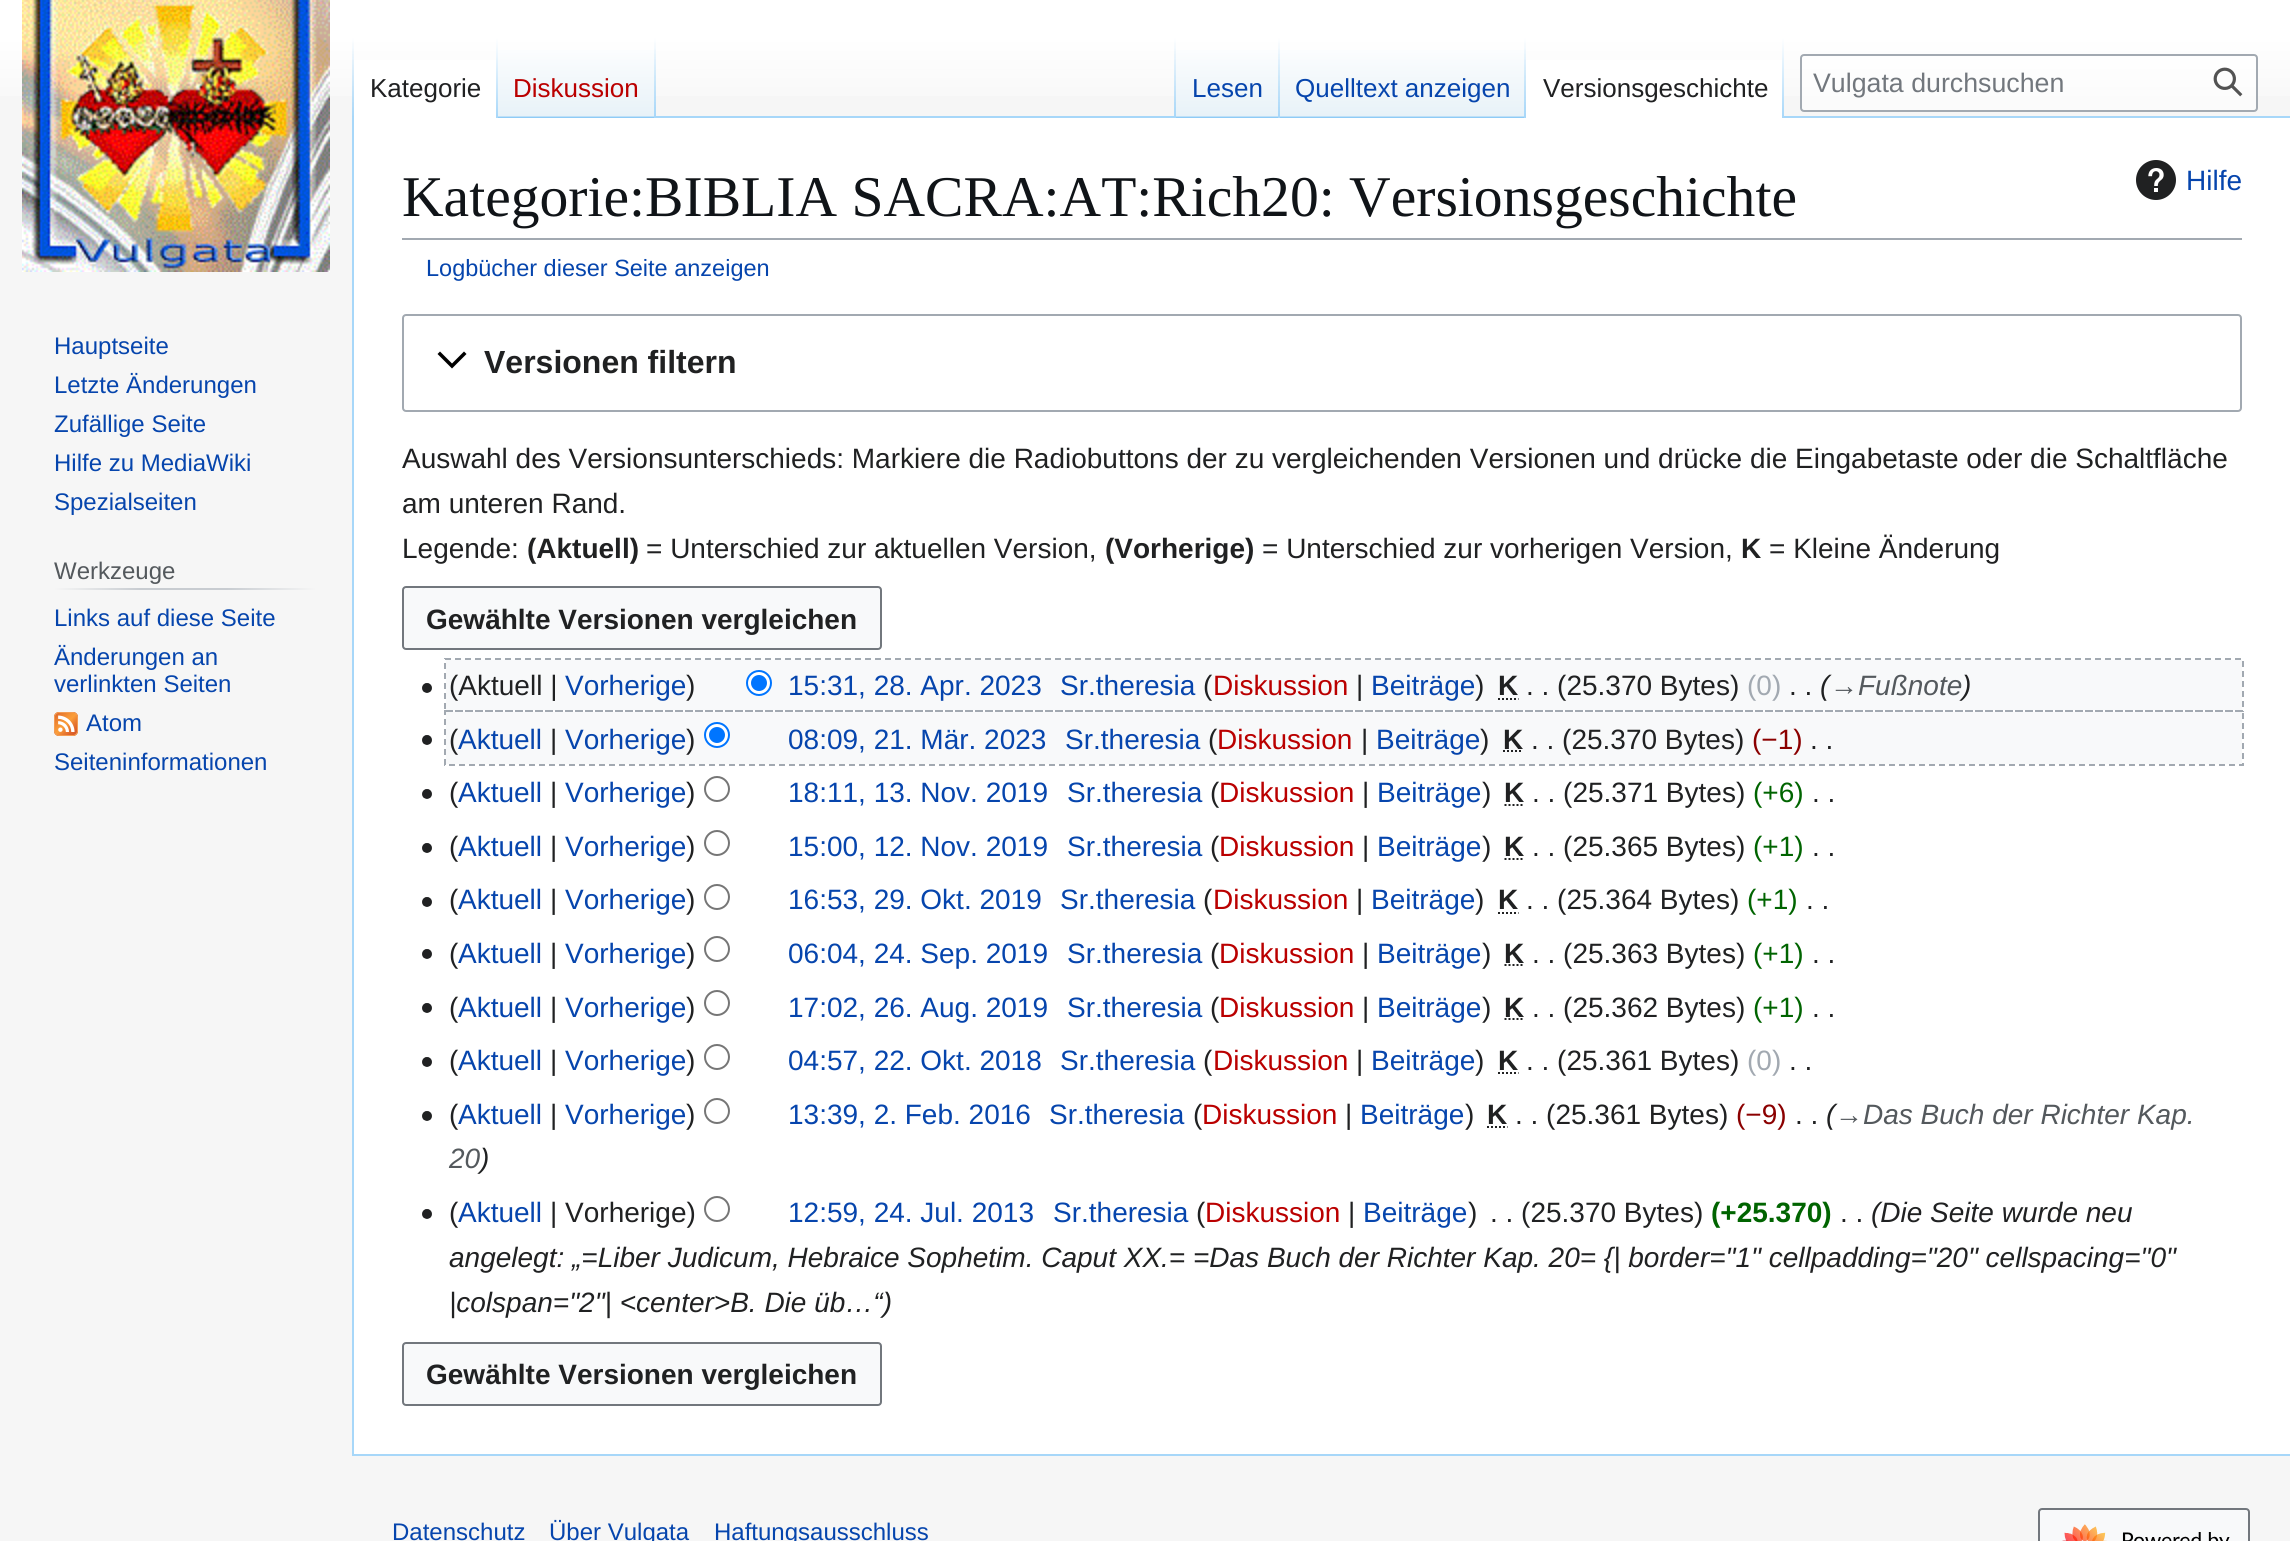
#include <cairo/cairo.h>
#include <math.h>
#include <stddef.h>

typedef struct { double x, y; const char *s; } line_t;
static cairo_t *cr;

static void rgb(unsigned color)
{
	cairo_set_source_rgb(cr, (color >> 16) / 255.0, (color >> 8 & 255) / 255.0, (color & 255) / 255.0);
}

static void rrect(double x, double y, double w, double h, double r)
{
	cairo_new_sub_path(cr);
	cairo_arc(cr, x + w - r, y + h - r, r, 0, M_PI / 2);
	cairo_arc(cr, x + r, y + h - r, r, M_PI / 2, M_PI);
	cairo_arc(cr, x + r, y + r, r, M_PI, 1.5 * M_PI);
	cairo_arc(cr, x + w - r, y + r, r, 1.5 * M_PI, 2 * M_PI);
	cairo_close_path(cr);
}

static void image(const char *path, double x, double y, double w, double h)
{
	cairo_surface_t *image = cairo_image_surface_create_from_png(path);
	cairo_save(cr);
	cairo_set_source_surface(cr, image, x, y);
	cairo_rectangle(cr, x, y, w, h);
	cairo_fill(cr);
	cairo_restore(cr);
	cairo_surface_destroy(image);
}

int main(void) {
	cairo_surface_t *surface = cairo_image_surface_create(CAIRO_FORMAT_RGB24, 2290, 1541);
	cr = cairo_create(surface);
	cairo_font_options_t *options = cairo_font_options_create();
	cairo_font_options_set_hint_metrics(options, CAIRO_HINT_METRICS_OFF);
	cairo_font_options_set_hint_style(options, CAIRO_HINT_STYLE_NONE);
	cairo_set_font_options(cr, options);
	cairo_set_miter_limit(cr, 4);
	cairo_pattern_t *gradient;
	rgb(0xf6f6f6);
	cairo_paint(cr);
	gradient = cairo_pattern_create_linear(1145, -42, 1145, 118);
	cairo_pattern_add_color_stop_rgba(gradient, 0.5, 1, 1, 1, 1);
	cairo_pattern_add_color_stop_rgba(gradient, 1, 0.965, 0.965, 0.965, 1);
	cairo_set_source(cr, gradient);
	cairo_pattern_destroy(gradient);
	cairo_rectangle(cr, 0, 0, 2290, 96);
	cairo_fill(cr);
	rgb(0xa7d7f9);
	cairo_rectangle(cr, 352, 1454, 1938, 2);
	cairo_fill(cr);
	cairo_rectangle(cr, 352, 116, 2, 1340);
	cairo_fill(cr);
	gradient = cairo_pattern_create_linear(353, 38, 353, 118);
	cairo_pattern_add_color_stop_rgba(gradient, 0, 0.655, 0.843, 0.976, 0);
	cairo_pattern_add_color_stop_rgba(gradient, 1, 0.655, 0.843, 0.976, 1);
	cairo_set_source(cr, gradient);
	cairo_pattern_destroy(gradient);
	cairo_rectangle(cr, 352, 38, 2, 80);
	cairo_fill(cr);
	rgb(0xffffff);
	cairo_rectangle(cr, 354, 60, 142, 58);
	cairo_fill(cr);
	gradient = cairo_pattern_create_linear(497, 38, 497, 118);
	cairo_pattern_add_color_stop_rgba(gradient, 0, 1, 1, 1, 1);
	cairo_pattern_add_color_stop_rgba(gradient, 1, 0.655, 0.843, 0.976, 1);
	cairo_set_source(cr, gradient);
	cairo_pattern_destroy(gradient);
	cairo_rectangle(cr, 496, 38, 2, 80);
	cairo_fill(cr);
	gradient = cairo_pattern_create_linear(577, 118, 577, 38);
	cairo_pattern_add_color_stop_rgba(gradient, 0, 0.467, 0.757, 0.965, 1);
	cairo_pattern_add_color_stop_rgba(gradient, 0.03, 0.91, 0.949, 0.973, 1);
	cairo_pattern_add_color_stop_rgba(gradient, 1, 1, 1, 1, 1);
	cairo_set_source(cr, gradient);
	cairo_pattern_destroy(gradient);
	cairo_rectangle(cr, 498, 50, 158, 68);
	cairo_fill(cr);
	gradient = cairo_pattern_create_linear(655, 38, 655, 118);
	cairo_pattern_add_color_stop_rgba(gradient, 0, 0.655, 0.843, 0.976, 0);
	cairo_pattern_add_color_stop_rgba(gradient, 1, 0.655, 0.843, 0.976, 1);
	cairo_set_source(cr, gradient);
	cairo_pattern_destroy(gradient);
	cairo_rectangle(cr, 654, 38, 2, 80);
	cairo_fill(cr);
	rgb(0xa7d7f9);
	cairo_rectangle(cr, 656, 116, 1634, 2);
	cairo_fill(cr);
	gradient = cairo_pattern_create_linear(1175, 38, 1175, 118);
	cairo_pattern_add_color_stop_rgba(gradient, 0, 0.655, 0.843, 0.976, 0);
	cairo_pattern_add_color_stop_rgba(gradient, 1, 0.655, 0.843, 0.976, 1);
	cairo_set_source(cr, gradient);
	cairo_pattern_destroy(gradient);
	cairo_rectangle(cr, 1174, 38, 2, 80);
	cairo_fill(cr);
	gradient = cairo_pattern_create_linear(1228, 118, 1228, 38);
	cairo_pattern_add_color_stop_rgba(gradient, 0, 0.467, 0.757, 0.965, 1);
	cairo_pattern_add_color_stop_rgba(gradient, 0.03, 0.91, 0.949, 0.973, 1);
	cairo_pattern_add_color_stop_rgba(gradient, 1, 1, 1, 1, 1);
	cairo_set_source(cr, gradient);
	cairo_pattern_destroy(gradient);
	cairo_rectangle(cr, 1176, 50, 104, 68);
	cairo_fill(cr);
	gradient = cairo_pattern_create_linear(1279, 38, 1279, 118);
	cairo_pattern_add_color_stop_rgba(gradient, 0, 0.655, 0.843, 0.976, 0);
	cairo_pattern_add_color_stop_rgba(gradient, 1, 0.655, 0.843, 0.976, 1);
	cairo_set_source(cr, gradient);
	cairo_pattern_destroy(gradient);
	cairo_rectangle(cr, 1278, 38, 2, 80);
	cairo_fill(cr);
	gradient = cairo_pattern_create_linear(1403, 118, 1403, 38);
	cairo_pattern_add_color_stop_rgba(gradient, 0, 0.467, 0.757, 0.965, 1);
	cairo_pattern_add_color_stop_rgba(gradient, 0.03, 0.91, 0.949, 0.973, 1);
	cairo_pattern_add_color_stop_rgba(gradient, 1, 1, 1, 1, 1);
	cairo_set_source(cr, gradient);
	cairo_pattern_destroy(gradient);
	cairo_rectangle(cr, 1280, 50, 246, 68);
	cairo_fill(cr);
	gradient = cairo_pattern_create_linear(1525, 38, 1525, 118);
	cairo_pattern_add_color_stop_rgba(gradient, 0, 0.655, 0.843, 0.976, 0);
	cairo_pattern_add_color_stop_rgba(gradient, 1, 0.655, 0.843, 0.976, 1);
	cairo_set_source(cr, gradient);
	cairo_pattern_destroy(gradient);
	cairo_rectangle(cr, 1524, 38, 2, 80);
	cairo_fill(cr);
	rgb(0xffffff);
	cairo_rectangle(cr, 1526, 60, 256, 58);
	cairo_fill(cr);
	gradient = cairo_pattern_create_linear(1783, 38, 1783, 118);
	cairo_pattern_add_color_stop_rgba(gradient, 0, 1, 1, 1, 1);
	cairo_pattern_add_color_stop_rgba(gradient, 1, 0.655, 0.843, 0.976, 1);
	cairo_set_source(cr, gradient);
	cairo_pattern_destroy(gradient);
	cairo_rectangle(cr, 1782, 38, 2, 80);
	cairo_fill(cr);
	cairo_set_source_rgba(cr, 1, 1, 1, 0.5);
	rrect(1801, 55, 456, 56, 3);
	cairo_fill_preserve(cr);
	rgb(0xa2a9b1);
	cairo_stroke(cr);
	image("img/1.png", 2213, 67, 30, 30);
	image("img/2.png", 22, 0, 308, 272);
	gradient = cairo_pattern_create_linear(54, 589, 316, 589);
	cairo_pattern_add_color_stop_rgba(gradient, 0, 0.965, 0.965, 0.965, 1);
	cairo_pattern_add_color_stop_rgba(gradient, 0.33, 0.784, 0.8, 0.82, 1);
	cairo_pattern_add_color_stop_rgba(gradient, 0.66, 0.784, 0.8, 0.82, 1);
	cairo_pattern_add_color_stop_rgba(gradient, 1, 0.965, 0.965, 0.965, 1);
	cairo_set_source(cr, gradient);
	cairo_pattern_destroy(gradient);
	cairo_rectangle(cr, 54, 588, 262, 2);
	cairo_fill(cr);
	image("img/3.png", 54, 712, 24, 24);
	rgb(0xffffff);
	cairo_rectangle(cr, 354, 118, 1936, 1336);
	cairo_fill(cr);
	rgb(0xa2a9b1);
	cairo_rectangle(cr, 402, 238, 1840, 2);
	cairo_fill(cr);
	image("img/4.png", 2136, 160, 40, 40);
	rrect(403, 315, 1838, 96, 3);
	cairo_stroke(cr);
	rgb(0x000000);
	cairo_new_path(cr);
	cairo_move_to(cr, 464, 351.5);
	cairo_line_to(cr, 452, 363.5);
	cairo_line_to(cr, 440, 351.5);
	cairo_line_to(cr, 437.5, 354);
	cairo_line_to(cr, 452, 368.5);
	cairo_line_to(cr, 466.5, 354);
	cairo_close_path(cr);
	cairo_fill(cr);
	rgb(0xf8f9fa);
	rrect(403, 587, 478, 62, 3);
	cairo_fill_preserve(cr);
	rgb(0x72777d);
	cairo_stroke(cr);
	rgb(0xf8f9fa);
	cairo_rectangle(cr, 446, 660, 1796, 50);
	cairo_fill(cr);
	image("img/5.png", 422, 683, 10, 10);
	rgb(0xffffff);
	cairo_arc(cr, 759, 683, 12, 0, 2 * M_PI);
	cairo_fill_preserve(cr);
	rgb(0x0075ff);
	cairo_stroke(cr);
	cairo_arc(cr, 759, 683, 8, 0, 2 * M_PI);
	cairo_fill(cr);
	cairo_new_path(cr);
	cairo_move_to(cr, 1498, 699);
	cairo_line_to(cr, 1518.5, 699);
	rgb(0x202122);
	cairo_set_dash(cr, (double[]){2, 2}, 2, 0);
	cairo_stroke(cr);
	rgb(0xf8f9fa);
	cairo_rectangle(cr, 446, 712, 1796, 52);
	cairo_fill(cr);
	image("img/5.png", 422, 735, 10, 10);
	rgb(0xffffff);
	cairo_arc(cr, 717, 735, 12, 0, 2 * M_PI);
	cairo_fill_preserve(cr);
	rgb(0x0075ff);
	cairo_set_dash(cr, NULL, 0, 0);
	cairo_stroke(cr);
	cairo_arc(cr, 717, 735, 8, 0, 2 * M_PI);
	cairo_fill(cr);
	cairo_new_path(cr);
	cairo_move_to(cr, 1503, 751);
	cairo_line_to(cr, 1523, 751);
	rgb(0x202122);
	cairo_set_dash(cr, (double[]){2, 2}, 2, 0);
	cairo_stroke(cr);
	image("img/5.png", 422, 789, 10, 10);
	cairo_arc(cr, 717, 789, 12, 0, 2 * M_PI);
	rgb(0x767676);
	cairo_set_dash(cr, NULL, 0, 0);
	cairo_stroke(cr);
	cairo_new_path(cr);
	cairo_move_to(cr, 1504.5, 805);
	cairo_line_to(cr, 1524.5, 805);
	rgb(0x202122);
	cairo_set_dash(cr, (double[]){2, 2}, 2, 0);
	cairo_stroke(cr);
	image("img/5.png", 422, 843, 10, 10);
	cairo_arc(cr, 717, 843, 12, 0, 2 * M_PI);
	rgb(0x767676);
	cairo_set_dash(cr, NULL, 0, 0);
	cairo_stroke(cr);
	cairo_new_path(cr);
	cairo_move_to(cr, 1504.5, 859);
	cairo_line_to(cr, 1524.5, 859);
	rgb(0x202122);
	cairo_set_dash(cr, (double[]){2, 2}, 2, 0);
	cairo_stroke(cr);
	image("img/5.png", 422, 897, 10, 10);
	cairo_arc(cr, 717, 897, 12, 0, 2 * M_PI);
	rgb(0x767676);
	cairo_set_dash(cr, NULL, 0, 0);
	cairo_stroke(cr);
	cairo_new_path(cr);
	cairo_move_to(cr, 1498, 913);
	cairo_line_to(cr, 1518.5, 913);
	rgb(0x202122);
	cairo_set_dash(cr, (double[]){2, 2}, 2, 0);
	cairo_stroke(cr);
	image("img/5.png", 422, 949, 10, 10);
	cairo_arc(cr, 717, 949, 12, 0, 2 * M_PI);
	rgb(0x767676);
	cairo_set_dash(cr, NULL, 0, 0);
	cairo_stroke(cr);
	cairo_new_path(cr);
	cairo_move_to(cr, 1504.5, 965);
	cairo_line_to(cr, 1524.5, 965);
	rgb(0x202122);
	cairo_set_dash(cr, (double[]){2, 2}, 2, 0);
	cairo_stroke(cr);
	image("img/5.png", 422, 1003, 10, 10);
	cairo_arc(cr, 717, 1003, 12, 0, 2 * M_PI);
	rgb(0x767676);
	cairo_set_dash(cr, NULL, 0, 0);
	cairo_stroke(cr);
	cairo_new_path(cr);
	cairo_move_to(cr, 1504.5, 1019);
	cairo_line_to(cr, 1524.5, 1019);
	rgb(0x202122);
	cairo_set_dash(cr, (double[]){2, 2}, 2, 0);
	cairo_stroke(cr);
	image("img/5.png", 422, 1057, 10, 10);
	cairo_arc(cr, 717, 1057, 12, 0, 2 * M_PI);
	rgb(0x767676);
	cairo_set_dash(cr, NULL, 0, 0);
	cairo_stroke(cr);
	cairo_new_path(cr);
	cairo_move_to(cr, 1498, 1073);
	cairo_line_to(cr, 1518.5, 1073);
	rgb(0x202122);
	cairo_set_dash(cr, (double[]){2, 2}, 2, 0);
	cairo_stroke(cr);
	image("img/5.png", 422, 1111, 10, 10);
	cairo_arc(cr, 717, 1111, 12, 0, 2 * M_PI);
	rgb(0x767676);
	cairo_set_dash(cr, NULL, 0, 0);
	cairo_stroke(cr);
	cairo_new_path(cr);
	cairo_move_to(cr, 1487, 1127);
	cairo_line_to(cr, 1507.5, 1127);
	rgb(0x202122);
	cairo_set_dash(cr, (double[]){2, 2}, 2, 0);
	cairo_stroke(cr);
	image("img/5.png", 422, 1209, 10, 10);
	cairo_arc(cr, 717, 1209, 12, 0, 2 * M_PI);
	rgb(0x767676);
	cairo_set_dash(cr, NULL, 0, 0);
	cairo_stroke(cr);
	rgb(0xf8f9fa);
	rrect(403, 1343, 478, 62, 3);
	cairo_fill_preserve(cr);
	rgb(0x72777d);
	cairo_stroke(cr);
	rgb(0xf8f9fa);
	rrect(2039, 1509, 210, 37, 3);
	cairo_fill_preserve(cr);
	rgb(0x72777d);
	cairo_stroke(cr);
	image("img/6.png", 2062, 1524, 168, 17);
	cairo_select_font_face(cr, "Liberation Sans", CAIRO_FONT_SLANT_NORMAL, CAIRO_FONT_WEIGHT_NORMAL);
	cairo_set_font_size(cr, 26);
	rgb(0x202122);
	cairo_move_to(cr, 370, 97);
	cairo_show_text(cr, "Kategorie");
	rgb(0xba0000);
	cairo_move_to(cr, 513, 97);
	cairo_show_text(cr, "Diskussion");
	rgb(0x0645ad);
	cairo_move_to(cr, 1192, 97);
	cairo_show_text(cr, "Lesen");
	cairo_move_to(cr, 1295, 97);
	cairo_show_text(cr, "Quelltext anzeigen");
	rgb(0x202122);
	cairo_move_to(cr, 1543, 97);
	cairo_show_text(cr, "Versionsgeschichte");
	cairo_set_font_size(cr, 26.75);
	rgb(0x72777d);
	cairo_move_to(cr, 1813, 92);
	cairo_show_text(cr, "Vulgata durchsuchen");
	cairo_set_font_size(cr, 24);
	rgb(0x0645ad);
	{
		static const line_t items[] = {
			{54, 354, "Hauptseite"},
			{54, 393, "Letzte Änderungen"},
			{54, 432, "Zufällige Seite"},
			{54, 471, "Hilfe zu MediaWiki"},
			{54, 510, "Spezialseiten"},
		};
		for (size_t i = 0; i < sizeof items / sizeof *items; i++) {
			cairo_move_to(cr, items[i].x, items[i].y);
			cairo_show_text(cr, items[i].s);
		}
	}
	rgb(0x54595d);
	cairo_move_to(cr, 54, 579);
	cairo_show_text(cr, "Werkzeuge");
	rgb(0x0645ad);
	{
		static const line_t items[] = {
			{54, 626, "Links auf diese Seite"},
			{54, 665, "Änderungen an"},
			{54, 692, "verlinkten Seiten"},
			{86, 731, "Atom"},
			{54, 770, "Seiteninformationen"},
		};
		for (size_t i = 0; i < sizeof items / sizeof *items; i++) {
			cairo_move_to(cr, items[i].x, items[i].y);
			cairo_show_text(cr, items[i].s);
		}
	}
	cairo_select_font_face(cr, "Liberation Serif", CAIRO_FONT_SLANT_NORMAL, CAIRO_FONT_WEIGHT_NORMAL);
	cairo_set_font_size(cr, 57.6);
	rgb(0x101418);
	cairo_move_to(cr, 402, 216);
	cairo_show_text(cr, "Kategorie:BIBLIA SACRA:AT:Rich20: Versionsgeschichte");
	cairo_select_font_face(cr, "Liberation Sans", CAIRO_FONT_SLANT_NORMAL, CAIRO_FONT_WEIGHT_NORMAL);
	cairo_set_font_size(cr, 28);
	rgb(0x0645ad);
	cairo_move_to(cr, 2186, 190);
	cairo_show_text(cr, "Hilfe");
	cairo_set_font_size(cr, 23.5);
	cairo_move_to(cr, 426, 276);
	cairo_show_text(cr, "Logbücher dieser Seite anzeigen");
	cairo_select_font_face(cr, "Liberation Sans", CAIRO_FONT_SLANT_NORMAL, CAIRO_FONT_WEIGHT_BOLD);
	cairo_set_font_size(cr, 32);
	rgb(0x202122);
	cairo_move_to(cr, 484, 373);
	cairo_show_text(cr, "Versionen filtern");
	cairo_select_font_face(cr, "Liberation Sans", CAIRO_FONT_SLANT_NORMAL, CAIRO_FONT_WEIGHT_NORMAL);
	cairo_set_font_size(cr, 28);
	{
		static const line_t items[] = {
			{402, 468, "Auswahl des Versionsunterschieds: Markiere die Radiobuttons der zu vergleichenden Versionen und drücke die Eingabetaste oder die Schaltfläche"},
			{402, 513, "am unteren Rand."},
			{402, 558, "Legende:"},
		};
		for (size_t i = 0; i < sizeof items / sizeof *items; i++) {
			cairo_move_to(cr, items[i].x, items[i].y);
			cairo_show_text(cr, items[i].s);
		}
	}
	cairo_select_font_face(cr, "Liberation Sans", CAIRO_FONT_SLANT_NORMAL, CAIRO_FONT_WEIGHT_BOLD);
	cairo_move_to(cr, 527, 558);
	cairo_show_text(cr, "(Aktuell)");
	cairo_select_font_face(cr, "Liberation Sans", CAIRO_FONT_SLANT_NORMAL, CAIRO_FONT_WEIGHT_NORMAL);
	cairo_move_to(cr, 646, 558);
	cairo_show_text(cr, "= Unterschied zur aktuellen Version,");
	cairo_select_font_face(cr, "Liberation Sans", CAIRO_FONT_SLANT_NORMAL, CAIRO_FONT_WEIGHT_BOLD);
	cairo_move_to(cr, 1105, 558);
	cairo_show_text(cr, "(Vorherige)");
	cairo_select_font_face(cr, "Liberation Sans", CAIRO_FONT_SLANT_NORMAL, CAIRO_FONT_WEIGHT_NORMAL);
	cairo_move_to(cr, 1262, 558);
	cairo_show_text(cr, "= Unterschied zur vorherigen Version,");
	cairo_select_font_face(cr, "Liberation Sans", CAIRO_FONT_SLANT_NORMAL, CAIRO_FONT_WEIGHT_BOLD);
	cairo_move_to(cr, 1741, 558);
	cairo_show_text(cr, "K");
	cairo_select_font_face(cr, "Liberation Sans", CAIRO_FONT_SLANT_NORMAL, CAIRO_FONT_WEIGHT_NORMAL);
	cairo_move_to(cr, 1769, 558);
	cairo_show_text(cr, "= Kleine Änderung");
	cairo_select_font_face(cr, "Liberation Sans", CAIRO_FONT_SLANT_NORMAL, CAIRO_FONT_WEIGHT_BOLD);
	cairo_move_to(cr, 426, 629);
	cairo_show_text(cr, "Gewählte Versionen vergleichen");
	cairo_select_font_face(cr, "Liberation Sans", CAIRO_FONT_SLANT_NORMAL, CAIRO_FONT_WEIGHT_NORMAL);
	cairo_move_to(cr, 449, 695);
	cairo_show_text(cr, "(Aktuell |");
	rgb(0x0645ad);
	cairo_move_to(cr, 565, 695);
	cairo_show_text(cr, "Vorherige");
	rgb(0x202122);
	cairo_move_to(cr, 686, 695);
	cairo_show_text(cr, ")");
	rgb(0x0645ad);
	cairo_move_to(cr, 788, 695);
	cairo_show_text(cr, "15:31, 28. Apr. 2023");
	cairo_move_to(cr, 1060, 695);
	cairo_show_text(cr, "Sr.theresia");
	rgb(0x202122);
	cairo_move_to(cr, 1203, 695);
	cairo_show_text(cr, "(");
	rgb(0xba0000);
	cairo_move_to(cr, 1213, 695);
	cairo_show_text(cr, "Diskussion");
	rgb(0x202122);
	cairo_move_to(cr, 1356, 695);
	cairo_show_text(cr, "|");
	rgb(0x0645ad);
	cairo_move_to(cr, 1371, 695);
	cairo_show_text(cr, "Beiträge");
	rgb(0x202122);
	cairo_move_to(cr, 1475, 695);
	cairo_show_text(cr, ")");
	cairo_select_font_face(cr, "Liberation Sans", CAIRO_FONT_SLANT_NORMAL, CAIRO_FONT_WEIGHT_BOLD);
	cairo_move_to(cr, 1498, 695);
	cairo_show_text(cr, "K");
	cairo_select_font_face(cr, "Liberation Sans", CAIRO_FONT_SLANT_NORMAL, CAIRO_FONT_WEIGHT_NORMAL);
	cairo_move_to(cr, 1526, 695);
	cairo_show_text(cr, ". . (25.370 Bytes)");
	rgb(0xa2a9b1);
	cairo_move_to(cr, 1747, 695);
	cairo_show_text(cr, "(0)");
	rgb(0x202122);
	cairo_move_to(cr, 1789, 695);
	cairo_show_text(cr, ". .");
	cairo_select_font_face(cr, "Liberation Sans", CAIRO_FONT_SLANT_ITALIC, CAIRO_FONT_WEIGHT_NORMAL);
	cairo_move_to(cr, 1820, 695);
	cairo_show_text(cr, "(");
	rgb(0x54595d);
	cairo_move_to(cr, 1830, 695);
	cairo_show_text(cr, "→Fußnote");
	rgb(0x202122);
	cairo_move_to(cr, 1962, 695);
	cairo_show_text(cr, ")");
	cairo_new_path(cr);
	cairo_move_to(cr, 445, 659);
	cairo_line_to(cr, 2243, 659);
	cairo_line_to(cr, 2243, 711);
	cairo_line_to(cr, 445, 711);
	cairo_close_path(cr);
	rgb(0xa2a9b1);
	cairo_set_dash(cr, (double[]){6, 4}, 2, 0);
	cairo_stroke(cr);
	cairo_select_font_face(cr, "Liberation Sans", CAIRO_FONT_SLANT_NORMAL, CAIRO_FONT_WEIGHT_NORMAL);
	rgb(0x202122);
	cairo_move_to(cr, 449, 749);
	cairo_show_text(cr, "(");
	rgb(0x0645ad);
	cairo_move_to(cr, 458, 749);
	cairo_show_text(cr, "Aktuell");
	rgb(0x202122);
	cairo_move_to(cr, 550, 749);
	cairo_show_text(cr, "|");
	rgb(0x0645ad);
	cairo_move_to(cr, 565, 749);
	cairo_show_text(cr, "Vorherige");
	rgb(0x202122);
	cairo_move_to(cr, 686, 749);
	cairo_show_text(cr, ")");
	rgb(0x0645ad);
	cairo_move_to(cr, 788, 749);
	cairo_show_text(cr, "08:09, 21. Mär. 2023");
	cairo_move_to(cr, 1065, 749);
	cairo_show_text(cr, "Sr.theresia");
	rgb(0x202122);
	cairo_move_to(cr, 1208, 749);
	cairo_show_text(cr, "(");
	rgb(0xba0000);
	cairo_move_to(cr, 1217, 749);
	cairo_show_text(cr, "Diskussion");
	rgb(0x202122);
	cairo_move_to(cr, 1361, 749);
	cairo_show_text(cr, "|");
	rgb(0x0645ad);
	cairo_move_to(cr, 1376, 749);
	cairo_show_text(cr, "Beiträge");
	rgb(0x202122);
	cairo_move_to(cr, 1480, 749);
	cairo_show_text(cr, ")");
	cairo_select_font_face(cr, "Liberation Sans", CAIRO_FONT_SLANT_NORMAL, CAIRO_FONT_WEIGHT_BOLD);
	cairo_move_to(cr, 1503, 749);
	cairo_show_text(cr, "K");
	cairo_select_font_face(cr, "Liberation Sans", CAIRO_FONT_SLANT_NORMAL, CAIRO_FONT_WEIGHT_NORMAL);
	cairo_move_to(cr, 1531, 749);
	cairo_show_text(cr, ". . (25.370 Bytes)");
	rgb(0x8b0000);
	cairo_move_to(cr, 1752, 749);
	cairo_show_text(cr, "(−1)");
	rgb(0x202122);
	cairo_move_to(cr, 1810, 749);
	cairo_show_text(cr, ". .");
	cairo_new_path(cr);
	cairo_move_to(cr, 445, 711);
	cairo_line_to(cr, 2243, 711);
	cairo_line_to(cr, 2243, 765);
	cairo_line_to(cr, 445, 765);
	cairo_close_path(cr);
	rgb(0xa2a9b1);
	cairo_stroke(cr);
	rgb(0x202122);
	cairo_move_to(cr, 449, 802);
	cairo_show_text(cr, "(");
	rgb(0x0645ad);
	cairo_move_to(cr, 458, 802);
	cairo_show_text(cr, "Aktuell");
	rgb(0x202122);
	cairo_move_to(cr, 550, 802);
	cairo_show_text(cr, "|");
	rgb(0x0645ad);
	cairo_move_to(cr, 565, 802);
	cairo_show_text(cr, "Vorherige");
	rgb(0x202122);
	cairo_move_to(cr, 686, 802);
	cairo_show_text(cr, ")");
	rgb(0x0645ad);
	cairo_move_to(cr, 788, 802);
	cairo_show_text(cr, "18:11, 13. Nov. 2019");
	cairo_move_to(cr, 1067, 802);
	cairo_show_text(cr, "Sr.theresia");
	rgb(0x202122);
	cairo_move_to(cr, 1210, 802);
	cairo_show_text(cr, "(");
	rgb(0xba0000);
	cairo_move_to(cr, 1219, 802);
	cairo_show_text(cr, "Diskussion");
	rgb(0x202122);
	cairo_move_to(cr, 1362, 802);
	cairo_show_text(cr, "|");
	rgb(0x0645ad);
	cairo_move_to(cr, 1377, 802);
	cairo_show_text(cr, "Beiträge");
	rgb(0x202122);
	cairo_move_to(cr, 1482, 802);
	cairo_show_text(cr, ")");
	cairo_select_font_face(cr, "Liberation Sans", CAIRO_FONT_SLANT_NORMAL, CAIRO_FONT_WEIGHT_BOLD);
	cairo_move_to(cr, 1504, 802);
	cairo_show_text(cr, "K");
	cairo_select_font_face(cr, "Liberation Sans", CAIRO_FONT_SLANT_NORMAL, CAIRO_FONT_WEIGHT_NORMAL);
	cairo_move_to(cr, 1532, 802);
	cairo_show_text(cr, ". . (25.371 Bytes)");
	rgb(0x006400);
	cairo_move_to(cr, 1753, 802);
	cairo_show_text(cr, "(+6)");
	rgb(0x202122);
	cairo_move_to(cr, 1812, 802);
	cairo_show_text(cr, ". .");
	cairo_move_to(cr, 449, 856);
	cairo_show_text(cr, "(");
	rgb(0x0645ad);
	cairo_move_to(cr, 458, 856);
	cairo_show_text(cr, "Aktuell");
	rgb(0x202122);
	cairo_move_to(cr, 550, 856);
	cairo_show_text(cr, "|");
	rgb(0x0645ad);
	cairo_move_to(cr, 565, 856);
	cairo_show_text(cr, "Vorherige");
	rgb(0x202122);
	cairo_move_to(cr, 686, 856);
	cairo_show_text(cr, ")");
	rgb(0x0645ad);
	cairo_move_to(cr, 788, 856);
	cairo_show_text(cr, "15:00, 12. Nov. 2019");
	cairo_move_to(cr, 1067, 856);
	cairo_show_text(cr, "Sr.theresia");
	rgb(0x202122);
	cairo_move_to(cr, 1210, 856);
	cairo_show_text(cr, "(");
	rgb(0xba0000);
	cairo_move_to(cr, 1219, 856);
	cairo_show_text(cr, "Diskussion");
	rgb(0x202122);
	cairo_move_to(cr, 1362, 856);
	cairo_show_text(cr, "|");
	rgb(0x0645ad);
	cairo_move_to(cr, 1377, 856);
	cairo_show_text(cr, "Beiträge");
	rgb(0x202122);
	cairo_move_to(cr, 1482, 856);
	cairo_show_text(cr, ")");
	cairo_select_font_face(cr, "Liberation Sans", CAIRO_FONT_SLANT_NORMAL, CAIRO_FONT_WEIGHT_BOLD);
	cairo_move_to(cr, 1504, 856);
	cairo_show_text(cr, "K");
	cairo_select_font_face(cr, "Liberation Sans", CAIRO_FONT_SLANT_NORMAL, CAIRO_FONT_WEIGHT_NORMAL);
	cairo_move_to(cr, 1532, 856);
	cairo_show_text(cr, ". . (25.365 Bytes)");
	rgb(0x006400);
	cairo_move_to(cr, 1753, 856);
	cairo_show_text(cr, "(+1)");
	rgb(0x202122);
	cairo_move_to(cr, 1812, 856);
	cairo_show_text(cr, ". .");
	cairo_move_to(cr, 449, 909);
	cairo_show_text(cr, "(");
	rgb(0x0645ad);
	cairo_move_to(cr, 458, 909);
	cairo_show_text(cr, "Aktuell");
	rgb(0x202122);
	cairo_move_to(cr, 550, 909);
	cairo_show_text(cr, "|");
	rgb(0x0645ad);
	cairo_move_to(cr, 565, 909);
	cairo_show_text(cr, "Vorherige");
	rgb(0x202122);
	cairo_move_to(cr, 686, 909);
	cairo_show_text(cr, ")");
	rgb(0x0645ad);
	cairo_move_to(cr, 788, 909);
	cairo_show_text(cr, "16:53, 29. Okt. 2019");
	cairo_move_to(cr, 1060, 909);
	cairo_show_text(cr, "Sr.theresia");
	rgb(0x202122);
	cairo_move_to(cr, 1203, 909);
	cairo_show_text(cr, "(");
	rgb(0xba0000);
	cairo_move_to(cr, 1213, 909);
	cairo_show_text(cr, "Diskussion");
	rgb(0x202122);
	cairo_move_to(cr, 1356, 909);
	cairo_show_text(cr, "|");
	rgb(0x0645ad);
	cairo_move_to(cr, 1371, 909);
	cairo_show_text(cr, "Beiträge");
	rgb(0x202122);
	cairo_move_to(cr, 1475, 909);
	cairo_show_text(cr, ")");
	cairo_select_font_face(cr, "Liberation Sans", CAIRO_FONT_SLANT_NORMAL, CAIRO_FONT_WEIGHT_BOLD);
	cairo_move_to(cr, 1498, 909);
	cairo_show_text(cr, "K");
	cairo_select_font_face(cr, "Liberation Sans", CAIRO_FONT_SLANT_NORMAL, CAIRO_FONT_WEIGHT_NORMAL);
	cairo_move_to(cr, 1526, 909);
	cairo_show_text(cr, ". . (25.364 Bytes)");
	rgb(0x006400);
	cairo_move_to(cr, 1747, 909);
	cairo_show_text(cr, "(+1)");
	rgb(0x202122);
	cairo_move_to(cr, 1806, 909);
	cairo_show_text(cr, ". .");
	cairo_move_to(cr, 449, 963);
	cairo_show_text(cr, "(");
	rgb(0x0645ad);
	cairo_move_to(cr, 458, 963);
	cairo_show_text(cr, "Aktuell");
	rgb(0x202122);
	cairo_move_to(cr, 550, 963);
	cairo_show_text(cr, "|");
	rgb(0x0645ad);
	cairo_move_to(cr, 565, 963);
	cairo_show_text(cr, "Vorherige");
	rgb(0x202122);
	cairo_move_to(cr, 686, 963);
	cairo_show_text(cr, ")");
	rgb(0x0645ad);
	cairo_move_to(cr, 788, 963);
	cairo_show_text(cr, "06:04, 24. Sep. 2019");
	cairo_move_to(cr, 1067, 963);
	cairo_show_text(cr, "Sr.theresia");
	rgb(0x202122);
	cairo_move_to(cr, 1210, 963);
	cairo_show_text(cr, "(");
	rgb(0xba0000);
	cairo_move_to(cr, 1219, 963);
	cairo_show_text(cr, "Diskussion");
	rgb(0x202122);
	cairo_move_to(cr, 1362, 963);
	cairo_show_text(cr, "|");
	rgb(0x0645ad);
	cairo_move_to(cr, 1377, 963);
	cairo_show_text(cr, "Beiträge");
	rgb(0x202122);
	cairo_move_to(cr, 1482, 963);
	cairo_show_text(cr, ")");
	cairo_select_font_face(cr, "Liberation Sans", CAIRO_FONT_SLANT_NORMAL, CAIRO_FONT_WEIGHT_BOLD);
	cairo_move_to(cr, 1504, 963);
	cairo_show_text(cr, "K");
	cairo_select_font_face(cr, "Liberation Sans", CAIRO_FONT_SLANT_NORMAL, CAIRO_FONT_WEIGHT_NORMAL);
	cairo_move_to(cr, 1532, 963);
	cairo_show_text(cr, ". . (25.363 Bytes)");
	rgb(0x006400);
	cairo_move_to(cr, 1753, 963);
	cairo_show_text(cr, "(+1)");
	rgb(0x202122);
	cairo_move_to(cr, 1812, 963);
	cairo_show_text(cr, ". .");
	cairo_move_to(cr, 449, 1017);
	cairo_show_text(cr, "(");
	rgb(0x0645ad);
	cairo_move_to(cr, 458, 1017);
	cairo_show_text(cr, "Aktuell");
	rgb(0x202122);
	cairo_move_to(cr, 550, 1017);
	cairo_show_text(cr, "|");
	rgb(0x0645ad);
	cairo_move_to(cr, 565, 1017);
	cairo_show_text(cr, "Vorherige");
	rgb(0x202122);
	cairo_move_to(cr, 686, 1017);
	cairo_show_text(cr, ")");
	rgb(0x0645ad);
	cairo_move_to(cr, 788, 1017);
	cairo_show_text(cr, "17:02, 26. Aug. 2019");
	cairo_move_to(cr, 1067, 1017);
	cairo_show_text(cr, "Sr.theresia");
	rgb(0x202122);
	cairo_move_to(cr, 1210, 1017);
	cairo_show_text(cr, "(");
	rgb(0xba0000);
	cairo_move_to(cr, 1219, 1017);
	cairo_show_text(cr, "Diskussion");
	rgb(0x202122);
	cairo_move_to(cr, 1362, 1017);
	cairo_show_text(cr, "|");
	rgb(0x0645ad);
	cairo_move_to(cr, 1377, 1017);
	cairo_show_text(cr, "Beiträge");
	rgb(0x202122);
	cairo_move_to(cr, 1482, 1017);
	cairo_show_text(cr, ")");
	cairo_select_font_face(cr, "Liberation Sans", CAIRO_FONT_SLANT_NORMAL, CAIRO_FONT_WEIGHT_BOLD);
	cairo_move_to(cr, 1504, 1017);
	cairo_show_text(cr, "K");
	cairo_select_font_face(cr, "Liberation Sans", CAIRO_FONT_SLANT_NORMAL, CAIRO_FONT_WEIGHT_NORMAL);
	cairo_move_to(cr, 1532, 1017);
	cairo_show_text(cr, ". . (25.362 Bytes)");
	rgb(0x006400);
	cairo_move_to(cr, 1753, 1017);
	cairo_show_text(cr, "(+1)");
	rgb(0x202122);
	cairo_move_to(cr, 1812, 1017);
	cairo_show_text(cr, ". .");
	cairo_move_to(cr, 449, 1070);
	cairo_show_text(cr, "(");
	rgb(0x0645ad);
	cairo_move_to(cr, 458, 1070);
	cairo_show_text(cr, "Aktuell");
	rgb(0x202122);
	cairo_move_to(cr, 550, 1070);
	cairo_show_text(cr, "|");
	rgb(0x0645ad);
	cairo_move_to(cr, 565, 1070);
	cairo_show_text(cr, "Vorherige");
	rgb(0x202122);
	cairo_move_to(cr, 686, 1070);
	cairo_show_text(cr, ")");
	rgb(0x0645ad);
	cairo_move_to(cr, 788, 1070);
	cairo_show_text(cr, "04:57, 22. Okt. 2018");
	cairo_move_to(cr, 1060, 1070);
	cairo_show_text(cr, "Sr.theresia");
	rgb(0x202122);
	cairo_move_to(cr, 1203, 1070);
	cairo_show_text(cr, "(");
	rgb(0xba0000);
	cairo_move_to(cr, 1213, 1070);
	cairo_show_text(cr, "Diskussion");
	rgb(0x202122);
	cairo_move_to(cr, 1356, 1070);
	cairo_show_text(cr, "|");
	rgb(0x0645ad);
	cairo_move_to(cr, 1371, 1070);
	cairo_show_text(cr, "Beiträge");
	rgb(0x202122);
	cairo_move_to(cr, 1475, 1070);
	cairo_show_text(cr, ")");
	cairo_select_font_face(cr, "Liberation Sans", CAIRO_FONT_SLANT_NORMAL, CAIRO_FONT_WEIGHT_BOLD);
	cairo_move_to(cr, 1498, 1070);
	cairo_show_text(cr, "K");
	cairo_select_font_face(cr, "Liberation Sans", CAIRO_FONT_SLANT_NORMAL, CAIRO_FONT_WEIGHT_NORMAL);
	cairo_move_to(cr, 1526, 1070);
	cairo_show_text(cr, ". . (25.361 Bytes)");
	rgb(0xa2a9b1);
	cairo_move_to(cr, 1747, 1070);
	cairo_show_text(cr, "(0)");
	rgb(0x202122);
	cairo_move_to(cr, 1789, 1070);
	cairo_show_text(cr, ". .");
	cairo_move_to(cr, 449, 1124);
	cairo_show_text(cr, "(");
	rgb(0x0645ad);
	cairo_move_to(cr, 458, 1124);
	cairo_show_text(cr, "Aktuell");
	rgb(0x202122);
	cairo_move_to(cr, 550, 1124);
	cairo_show_text(cr, "|");
	rgb(0x0645ad);
	cairo_move_to(cr, 565, 1124);
	cairo_show_text(cr, "Vorherige");
	rgb(0x202122);
	cairo_move_to(cr, 686, 1124);
	cairo_show_text(cr, ")");
	rgb(0x0645ad);
	cairo_move_to(cr, 788, 1124);
	cairo_show_text(cr, "13:39, 2. Feb. 2016");
	cairo_move_to(cr, 1049, 1124);
	cairo_show_text(cr, "Sr.theresia");
	rgb(0x202122);
	cairo_move_to(cr, 1193, 1124);
	cairo_show_text(cr, "(");
	rgb(0xba0000);
	cairo_move_to(cr, 1202, 1124);
	cairo_show_text(cr, "Diskussion");
	rgb(0x202122);
	cairo_move_to(cr, 1345, 1124);
	cairo_show_text(cr, "|");
	rgb(0x0645ad);
	cairo_move_to(cr, 1360, 1124);
	cairo_show_text(cr, "Beiträge");
	rgb(0x202122);
	cairo_move_to(cr, 1465, 1124);
	cairo_show_text(cr, ")");
	cairo_select_font_face(cr, "Liberation Sans", CAIRO_FONT_SLANT_NORMAL, CAIRO_FONT_WEIGHT_BOLD);
	cairo_move_to(cr, 1487, 1124);
	cairo_show_text(cr, "K");
	cairo_select_font_face(cr, "Liberation Sans", CAIRO_FONT_SLANT_NORMAL, CAIRO_FONT_WEIGHT_NORMAL);
	cairo_move_to(cr, 1515, 1124);
	cairo_show_text(cr, ". . (25.361 Bytes)");
	rgb(0x8b0000);
	cairo_move_to(cr, 1736, 1124);
	cairo_show_text(cr, "(−9)");
	rgb(0x202122);
	cairo_move_to(cr, 1795, 1124);
	cairo_show_text(cr, ". .");
	cairo_select_font_face(cr, "Liberation Sans", CAIRO_FONT_SLANT_ITALIC, CAIRO_FONT_WEIGHT_NORMAL);
	cairo_move_to(cr, 1826, 1124);
	cairo_show_text(cr, "(");
	rgb(0x54595d);
	cairo_move_to(cr, 1835, 1124);
	cairo_show_text(cr, "→Das Buch der Richter Kap.");
	cairo_move_to(cr, 449, 1168);
	cairo_show_text(cr, "20");
	rgb(0x202122);
	cairo_move_to(cr, 480, 1168);
	cairo_show_text(cr, ")");
	cairo_select_font_face(cr, "Liberation Sans", CAIRO_FONT_SLANT_NORMAL, CAIRO_FONT_WEIGHT_NORMAL);
	cairo_move_to(cr, 449, 1222);
	cairo_show_text(cr, "(");
	rgb(0x0645ad);
	cairo_move_to(cr, 458, 1222);
	cairo_show_text(cr, "Aktuell");
	rgb(0x202122);
	cairo_move_to(cr, 550, 1222);
	cairo_show_text(cr, "| Vorherige)");
	rgb(0x0645ad);
	cairo_move_to(cr, 788, 1222);
	cairo_show_text(cr, "12:59, 24. Jul. 2013");
	cairo_move_to(cr, 1053, 1222);
	cairo_show_text(cr, "Sr.theresia");
	rgb(0x202122);
	cairo_move_to(cr, 1196, 1222);
	cairo_show_text(cr, "(");
	rgb(0xba0000);
	cairo_move_to(cr, 1205, 1222);
	cairo_show_text(cr, "Diskussion");
	rgb(0x202122);
	cairo_move_to(cr, 1348, 1222);
	cairo_show_text(cr, "|");
	rgb(0x0645ad);
	cairo_move_to(cr, 1363, 1222);
	cairo_show_text(cr, "Beiträge");
	rgb(0x202122);
	cairo_move_to(cr, 1468, 1222);
	cairo_show_text(cr, ")");
	cairo_move_to(cr, 1490, 1222);
	cairo_show_text(cr, ". . (25.370 Bytes)");
	cairo_select_font_face(cr, "Liberation Sans", CAIRO_FONT_SLANT_NORMAL, CAIRO_FONT_WEIGHT_BOLD);
	rgb(0x006400);
	cairo_move_to(cr, 1711, 1222);
	cairo_show_text(cr, "(+25.370)");
	cairo_select_font_face(cr, "Liberation Sans", CAIRO_FONT_SLANT_NORMAL, CAIRO_FONT_WEIGHT_NORMAL);
	rgb(0x202122);
	cairo_move_to(cr, 1840, 1222);
	cairo_show_text(cr, ". .");
	cairo_select_font_face(cr, "Liberation Sans", CAIRO_FONT_SLANT_ITALIC, CAIRO_FONT_WEIGHT_NORMAL);
	{
		static const line_t items[] = {
			{1871, 1222, "(Die Seite wurde neu"},
			{449, 1267, "angelegt: „=Liber Judicum, Hebraice Sophetim. Caput XX.= =Das Buch der Richter Kap. 20= {| border=\"1\" cellpadding=\"20\" cellspacing=\"0\""},
			{449, 1312, "|colspan=\"2\"| <center>B. Die üb…“)"},
		};
		for (size_t i = 0; i < sizeof items / sizeof *items; i++) {
			cairo_move_to(cr, items[i].x, items[i].y);
			cairo_show_text(cr, items[i].s);
		}
	}
	cairo_select_font_face(cr, "Liberation Sans", CAIRO_FONT_SLANT_NORMAL, CAIRO_FONT_WEIGHT_BOLD);
	cairo_move_to(cr, 426, 1384);
	cairo_show_text(cr, "Gewählte Versionen vergleichen");
	cairo_select_font_face(cr, "Liberation Sans", CAIRO_FONT_SLANT_NORMAL, CAIRO_FONT_WEIGHT_NORMAL);
	cairo_set_font_size(cr, 24);
	rgb(0x0645ad);
	{
		static const line_t items[] = {
			{392, 1540, "Datenschutz"},
			{549, 1540, "Über Vulgata"},
			{714, 1540, "Haftungsausschluss"},
		};
		for (size_t i = 0; i < sizeof items / sizeof *items; i++) {
			cairo_move_to(cr, items[i].x, items[i].y);
			cairo_show_text(cr, items[i].s);
		}
	}
	cairo_surface_write_to_png(surface, "page.png");
	cairo_font_options_destroy(options);
	cairo_destroy(cr);
	cairo_surface_destroy(surface);
	return 0;
}
